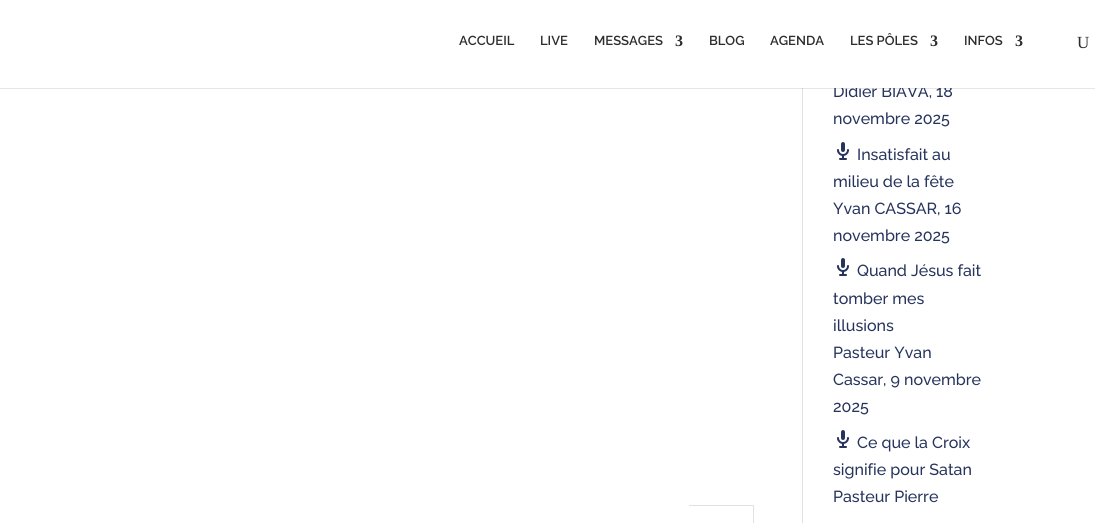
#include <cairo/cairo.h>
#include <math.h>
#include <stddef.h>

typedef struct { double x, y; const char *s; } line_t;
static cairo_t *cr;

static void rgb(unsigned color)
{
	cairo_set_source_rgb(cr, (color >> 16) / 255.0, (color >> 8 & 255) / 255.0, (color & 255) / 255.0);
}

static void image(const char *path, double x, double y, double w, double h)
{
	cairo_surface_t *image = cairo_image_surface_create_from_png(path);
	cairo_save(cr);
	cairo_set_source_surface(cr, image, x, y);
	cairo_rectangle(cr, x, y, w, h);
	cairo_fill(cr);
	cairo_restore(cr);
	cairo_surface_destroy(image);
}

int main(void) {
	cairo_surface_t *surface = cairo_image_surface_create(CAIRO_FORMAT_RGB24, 1095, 523);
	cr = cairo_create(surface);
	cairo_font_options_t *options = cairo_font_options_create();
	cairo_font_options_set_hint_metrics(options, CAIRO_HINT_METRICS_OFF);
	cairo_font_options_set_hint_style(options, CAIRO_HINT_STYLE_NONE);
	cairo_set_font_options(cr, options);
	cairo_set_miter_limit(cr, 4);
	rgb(0xffffff);
	cairo_paint(cr);
	rgb(0xe2e2e2);
	cairo_rectangle(cr, 802, 88, 1, 435);
	cairo_fill(cr);
	cairo_set_source_rgba(cr, 0, 0, 0, 0.1);
	cairo_rectangle(cr, 0, 88, 1095, 1);
	cairo_fill(cr);
	image("img/1.png", 837, 142, 12, 18);
	image("img/1.png", 837, 258, 12, 18);
	image("img/1.png", 837, 430, 12, 18);
	rgb(0xdbe3e8);
	cairo_rectangle(cr, 689, 505, 65, 1);
	cairo_fill(cr);
	cairo_rectangle(cr, 753, 505, 1, 18);
	cairo_fill(cr);
	cairo_select_font_face(cr, "Raleway SemiBold", CAIRO_FONT_SLANT_NORMAL, CAIRO_FONT_WEIGHT_NORMAL);
	cairo_set_font_size(cr, 13);
	rgb(0x2d2d2d);
	{
		static const line_t items[] = {
			{459, 45, "ACCUEIL"},
			{540, 45, "LIVE"},
			{594, 45, "MESSAGES"},
		};
		for (size_t i = 0; i < sizeof items / sizeof *items; i++) {
			cairo_move_to(cr, items[i].x, items[i].y);
			cairo_show_text(cr, items[i].s);
		}
	}
	cairo_select_font_face(cr, "Liberation Serif", CAIRO_FONT_SLANT_NORMAL, CAIRO_FONT_WEIGHT_BOLD);
	cairo_set_font_size(cr, 16);
	cairo_move_to(cr, 675, 46);
	cairo_show_text(cr, "3");
	cairo_select_font_face(cr, "Raleway SemiBold", CAIRO_FONT_SLANT_NORMAL, CAIRO_FONT_WEIGHT_NORMAL);
	cairo_set_font_size(cr, 13);
	{
		static const line_t items[] = {
			{709, 45, "BLOG"},
			{770, 45, "AGENDA"},
			{850, 45, "LES PÔLES"},
		};
		for (size_t i = 0; i < sizeof items / sizeof *items; i++) {
			cairo_move_to(cr, items[i].x, items[i].y);
			cairo_show_text(cr, items[i].s);
		}
	}
	cairo_select_font_face(cr, "Liberation Serif", CAIRO_FONT_SLANT_NORMAL, CAIRO_FONT_WEIGHT_BOLD);
	cairo_set_font_size(cr, 16);
	cairo_move_to(cr, 930, 46);
	cairo_show_text(cr, "3");
	cairo_select_font_face(cr, "Raleway SemiBold", CAIRO_FONT_SLANT_NORMAL, CAIRO_FONT_WEIGHT_NORMAL);
	cairo_set_font_size(cr, 13);
	cairo_move_to(cr, 964, 45);
	cairo_show_text(cr, "INFOS");
	cairo_select_font_face(cr, "Liberation Serif", CAIRO_FONT_SLANT_NORMAL, CAIRO_FONT_WEIGHT_BOLD);
	cairo_set_font_size(cr, 16);
	cairo_move_to(cr, 1015, 46);
	cairo_show_text(cr, "3");
	cairo_select_font_face(cr, "Liberation Serif", CAIRO_FONT_SLANT_NORMAL, CAIRO_FONT_WEIGHT_NORMAL);
	cairo_set_font_size(cr, 17);
	cairo_move_to(cr, 1077, 48);
	cairo_show_text(cr, "U");
	cairo_select_font_face(cr, "Raleway Medium", CAIRO_FONT_SLANT_NORMAL, CAIRO_FONT_WEIGHT_NORMAL);
	cairo_set_font_size(cr, 16);
	rgb(0x26345d);
	cairo_move_to(cr, 833, 97);
	cairo_show_text(cr, "Didier BIAVA, 18");
	rgb(0xffffff);
	cairo_rectangle(cr, 833, 85, 119, 3);
	cairo_fill(cr);
	rgb(0x26345d);
	{
		static const line_t items[] = {
			{833, 124, "novembre 2025"},
			{857, 160, "Insatisfait au"},
			{833, 187, "milieu de la fête"},
			{833, 214, "Yvan CASSAR, 16"},
			{833, 241, "novembre 2025"},
			{857, 276, "Quand Jésus fait"},
			{833, 304, "tomber mes"},
			{833, 331, "illusions"},
			{833, 358, "Pasteur Yvan"},
			{833, 385, "Cassar, 9 novembre"},
			{833, 412, "2025"},
			{857, 448, "Ce que la Croix"},
			{833, 475, "signifie pour Satan"},
			{833, 502, "Pasteur Pierre"},
		};
		for (size_t i = 0; i < sizeof items / sizeof *items; i++) {
			cairo_move_to(cr, items[i].x, items[i].y);
			cairo_show_text(cr, items[i].s);
		}
	}
	cairo_surface_write_to_png(surface, "page.png");
	cairo_font_options_destroy(options);
	cairo_destroy(cr);
	cairo_surface_destroy(surface);
	return 0;
}
